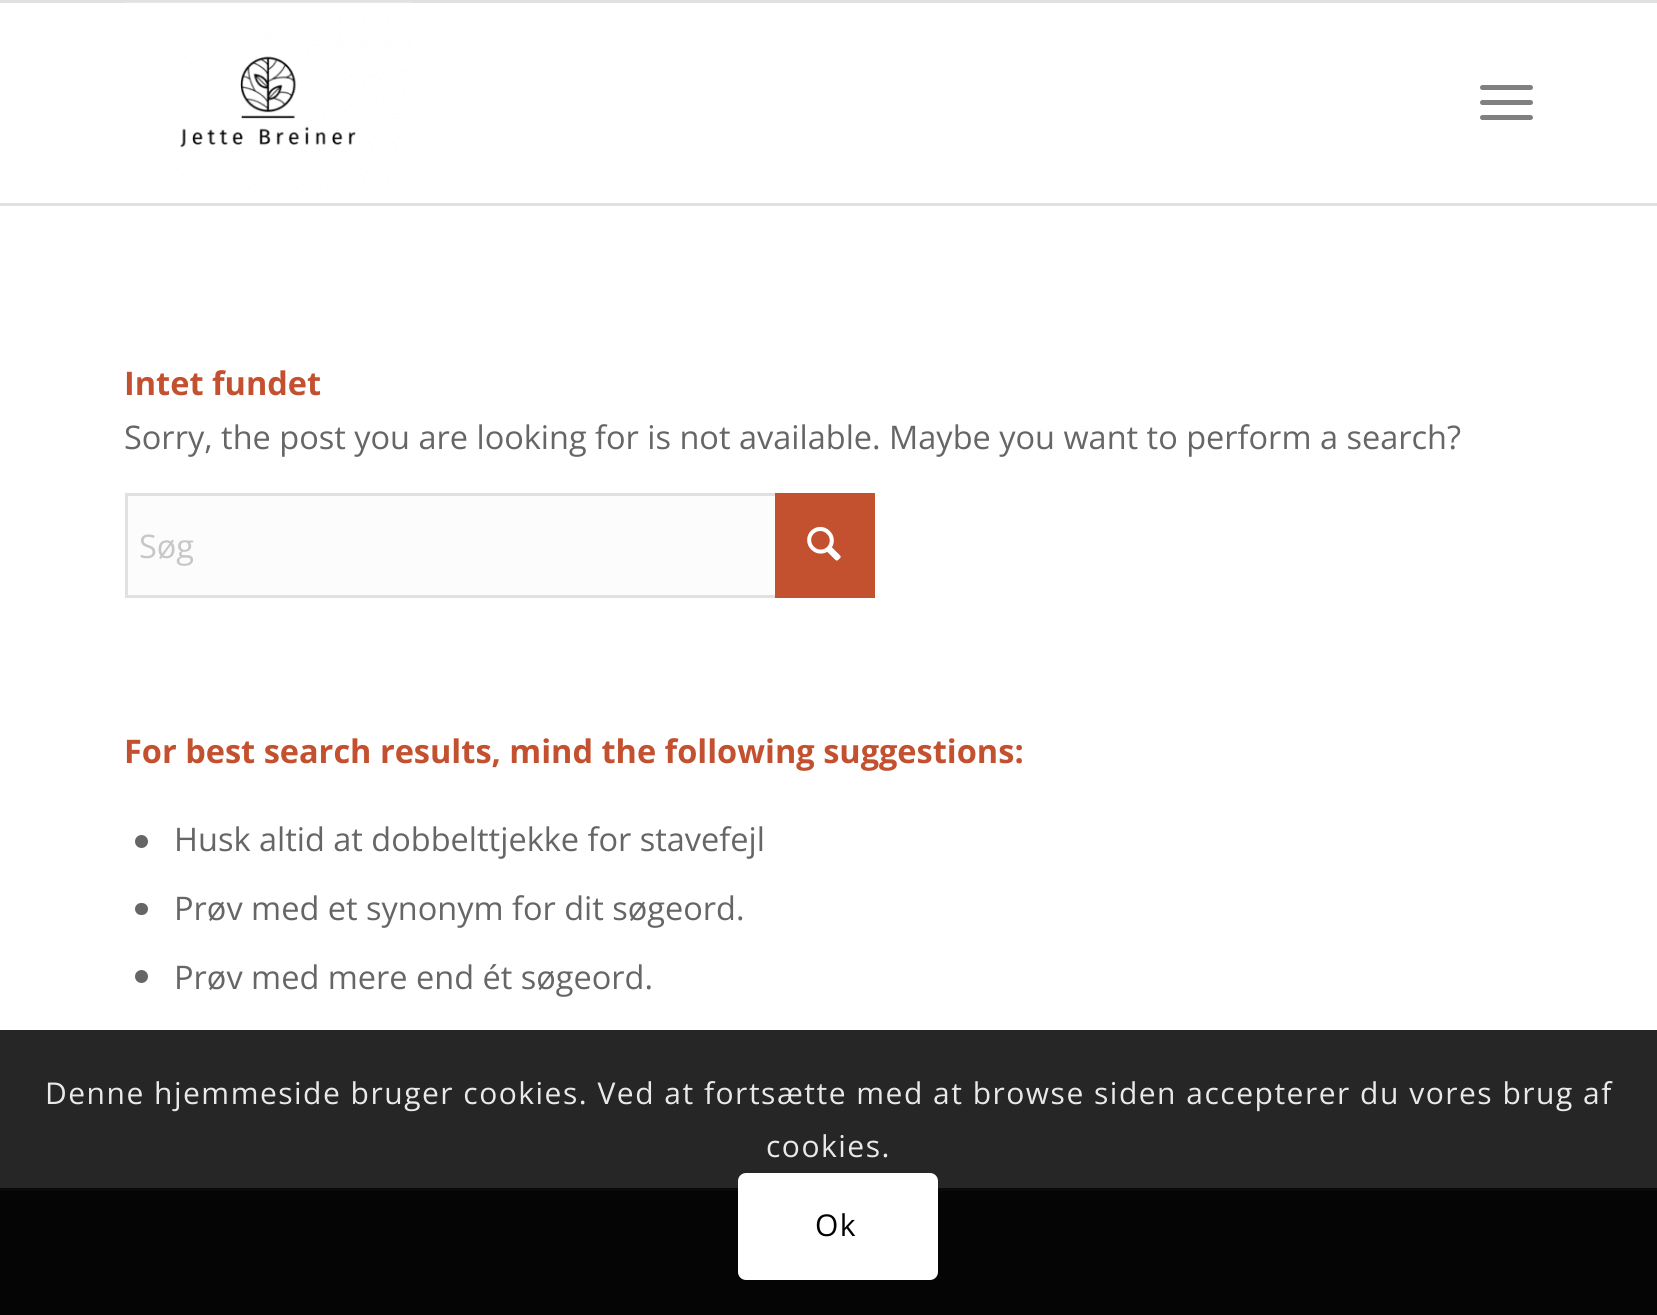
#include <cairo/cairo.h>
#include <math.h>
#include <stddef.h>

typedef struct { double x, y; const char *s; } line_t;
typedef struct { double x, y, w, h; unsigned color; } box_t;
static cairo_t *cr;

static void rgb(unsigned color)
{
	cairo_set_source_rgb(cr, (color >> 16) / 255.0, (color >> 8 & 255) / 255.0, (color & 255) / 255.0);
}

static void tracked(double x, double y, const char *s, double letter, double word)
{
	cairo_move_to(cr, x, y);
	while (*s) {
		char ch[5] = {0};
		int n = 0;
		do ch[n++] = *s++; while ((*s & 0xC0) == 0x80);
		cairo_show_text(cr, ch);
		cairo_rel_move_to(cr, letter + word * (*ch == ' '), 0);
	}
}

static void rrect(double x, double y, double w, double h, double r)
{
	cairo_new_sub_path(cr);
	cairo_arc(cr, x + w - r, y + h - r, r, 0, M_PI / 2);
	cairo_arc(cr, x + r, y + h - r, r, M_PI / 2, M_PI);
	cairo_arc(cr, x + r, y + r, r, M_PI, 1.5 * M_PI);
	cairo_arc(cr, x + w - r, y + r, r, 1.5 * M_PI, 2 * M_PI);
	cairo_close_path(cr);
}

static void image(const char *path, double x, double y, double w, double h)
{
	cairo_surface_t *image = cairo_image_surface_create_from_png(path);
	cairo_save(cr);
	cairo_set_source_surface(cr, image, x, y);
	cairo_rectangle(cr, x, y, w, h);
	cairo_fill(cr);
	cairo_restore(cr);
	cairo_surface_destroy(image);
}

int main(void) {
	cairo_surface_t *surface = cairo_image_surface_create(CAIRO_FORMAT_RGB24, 1657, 1315);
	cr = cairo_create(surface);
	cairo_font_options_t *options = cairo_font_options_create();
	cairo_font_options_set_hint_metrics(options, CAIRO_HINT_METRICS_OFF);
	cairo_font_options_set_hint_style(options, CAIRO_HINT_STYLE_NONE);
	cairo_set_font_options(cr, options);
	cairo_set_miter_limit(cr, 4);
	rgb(0xffffff);
	cairo_paint(cr);
	{
		static const box_t items[] = {
			{0, 1030, 1657, 158, 0x262626},
			{0, 0, 1657, 3, 0xe1e1e1},
			{0, 203, 1657, 3, 0xe1e1e1},
		};
		for (size_t i = 0; i < sizeof items / sizeof *items; i++) {
			rgb(items[i].color);
			cairo_rectangle(cr, items[i].x, items[i].y, items[i].w, items[i].h);
			cairo_fill(cr);
		}
	}
	image("img/1.png", 125, 2, 287, 192);
	rgb(0x808080);
	rrect(1480, 100, 53, 5, 2.5);
	cairo_fill(cr);
	rrect(1480, 85, 53, 5, 2.5);
	cairo_fill(cr);
	rrect(1480, 115, 53, 5, 2.5);
	cairo_fill(cr);
	rgb(0xfcfcfc);
	cairo_rectangle(cr, 128, 496, 647, 99);
	cairo_fill(cr);
	cairo_rectangle(cr, 126.5, 494.5, 747, 102);
	rgb(0xe1e1e1);
	cairo_set_line_width(cr, 3);
	cairo_stroke(cr);
	rgb(0xc3512f);
	cairo_rectangle(cr, 775, 493, 100, 105);
	cairo_fill(cr);
	image("img/2.png", 807, 526, 34, 35);
	rgb(0x666666);
	cairo_arc(cr, 141.5, 841.5, 6.5, 0, 2 * M_PI);
	cairo_fill(cr);
	rrect(135, 903, 13, 12, 6);
	cairo_fill(cr);
	cairo_arc(cr, 141.5, 976.5, 6.5, 0, 2 * M_PI);
	cairo_fill(cr);
	rgb(0x050505);
	cairo_rectangle(cr, 0, 1191, 1657, 124);
	cairo_fill(cr);
	rgb(0x0a0a0a);
	cairo_rectangle(cr, 0, 1188, 1657, 3);
	cairo_fill(cr);
	rgb(0xffffff);
	rrect(738, 1173, 200, 107, 8);
	cairo_fill(cr);
	cairo_select_font_face(cr, "Open Sans", CAIRO_FONT_SLANT_NORMAL, CAIRO_FONT_WEIGHT_BOLD);
	cairo_set_font_size(cr, 32.5);
	rgb(0xc3512f);
	cairo_move_to(cr, 124, 395);
	cairo_show_text(cr, "Intet fundet");
	cairo_select_font_face(cr, "Open Sans", CAIRO_FONT_SLANT_NORMAL, CAIRO_FONT_WEIGHT_NORMAL);
	rgb(0x666666);
	cairo_move_to(cr, 124, 449);
	cairo_show_text(cr, "Sorry, the post you are looking for is not available. Maybe you want to perform a search?");
	rgb(0xc7c7c7);
	cairo_move_to(cr, 139, 558);
	cairo_show_text(cr, "Søg");
	cairo_select_font_face(cr, "Open Sans", CAIRO_FONT_SLANT_NORMAL, CAIRO_FONT_WEIGHT_BOLD);
	rgb(0xc3512f);
	cairo_move_to(cr, 124, 763);
	cairo_show_text(cr, "For best search results, mind the following suggestions:");
	cairo_select_font_face(cr, "Open Sans", CAIRO_FONT_SLANT_NORMAL, CAIRO_FONT_WEIGHT_NORMAL);
	rgb(0x666666);
	{
		static const line_t items[] = {
			{174, 851, "Husk altid at dobbelttjekke for stavefejl"},
			{174, 920, "Prøv med et synonym for dit søgeord."},
			{174, 989, "Prøv med mere end ét søgeord."},
		};
		for (size_t i = 0; i < sizeof items / sizeof *items; i++) {
			cairo_move_to(cr, items[i].x, items[i].y);
			cairo_show_text(cr, items[i].s);
		}
	}
	cairo_set_font_size(cr, 30);
	rgb(0xe9e9e9);
	tracked(45, 1104, "Denne hjemmeside bruger cookies. Ved at fortsætte med at browse siden accepterer du vores brug af", 1.5, 0);
	tracked(766, 1157, "cookies.", 1.5, 0);
	rgb(0x000000);
	tracked(815, 1236, "Ok", 1.5, 0);
	cairo_surface_write_to_png(surface, "page.png");
	cairo_font_options_destroy(options);
	cairo_destroy(cr);
	cairo_surface_destroy(surface);
	return 0;
}
